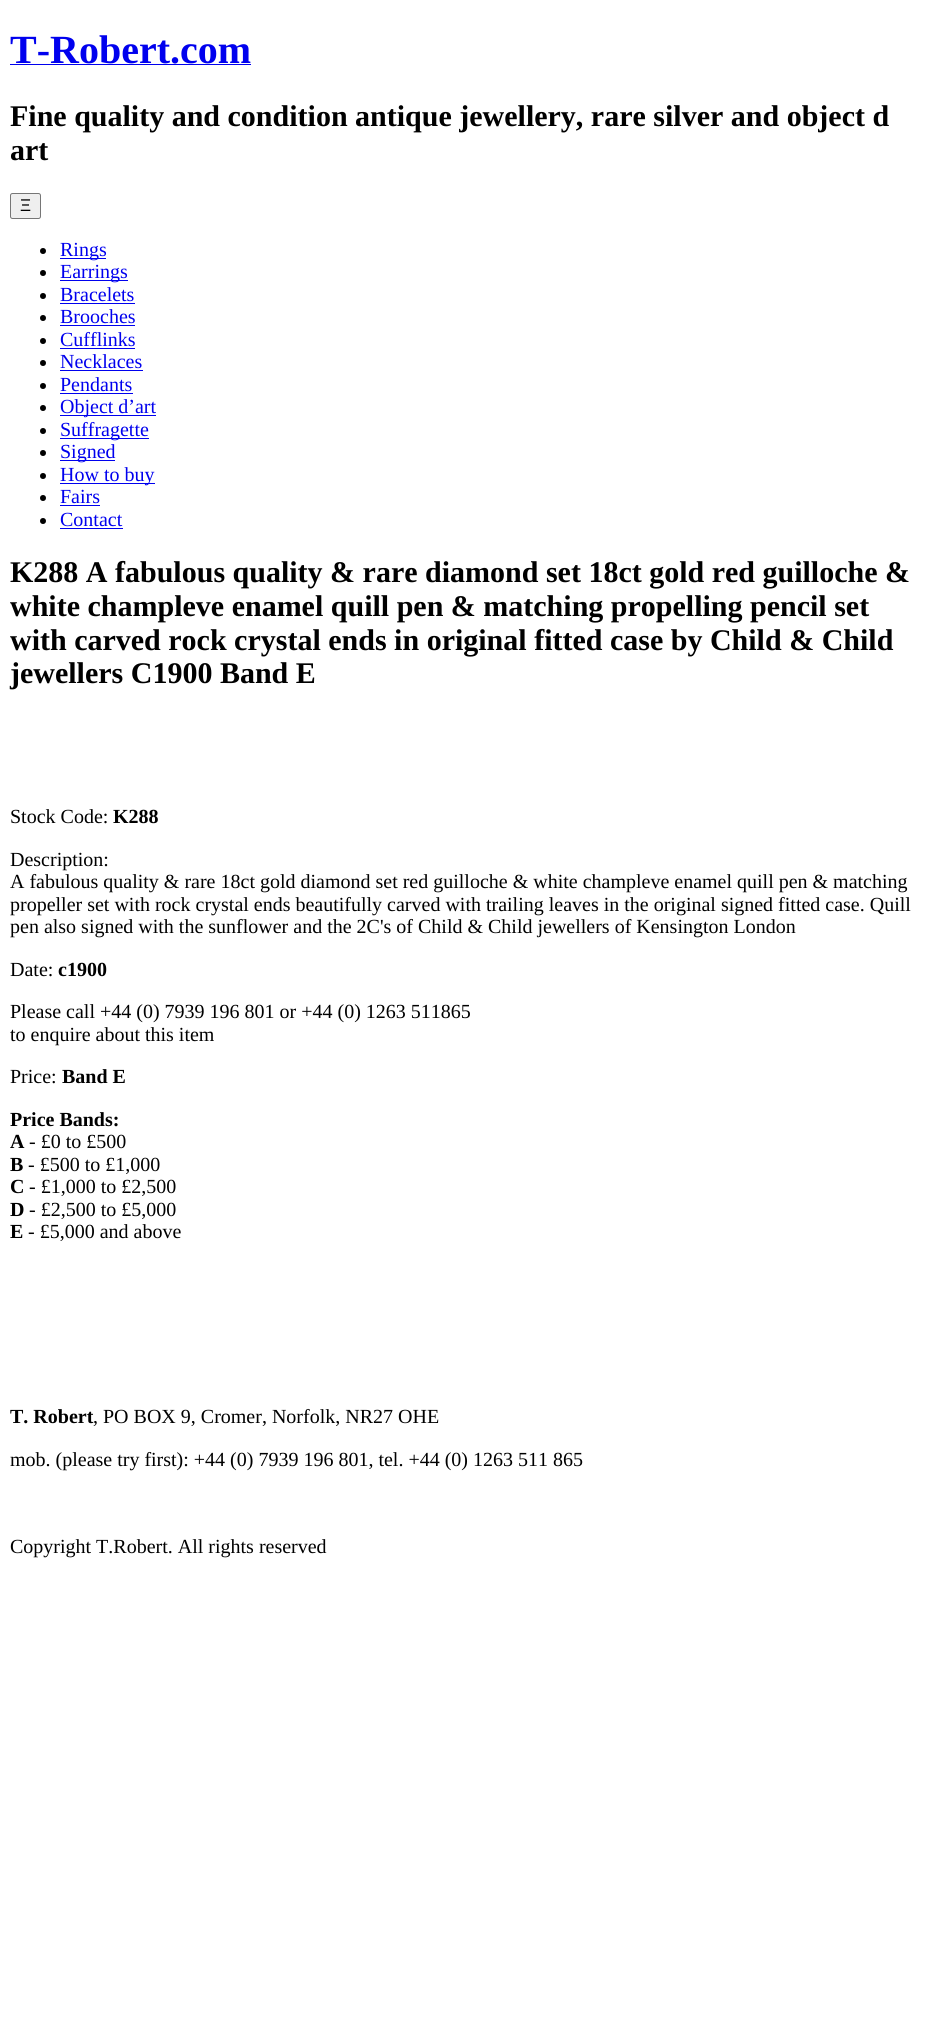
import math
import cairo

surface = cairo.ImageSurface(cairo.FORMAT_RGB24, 925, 2033)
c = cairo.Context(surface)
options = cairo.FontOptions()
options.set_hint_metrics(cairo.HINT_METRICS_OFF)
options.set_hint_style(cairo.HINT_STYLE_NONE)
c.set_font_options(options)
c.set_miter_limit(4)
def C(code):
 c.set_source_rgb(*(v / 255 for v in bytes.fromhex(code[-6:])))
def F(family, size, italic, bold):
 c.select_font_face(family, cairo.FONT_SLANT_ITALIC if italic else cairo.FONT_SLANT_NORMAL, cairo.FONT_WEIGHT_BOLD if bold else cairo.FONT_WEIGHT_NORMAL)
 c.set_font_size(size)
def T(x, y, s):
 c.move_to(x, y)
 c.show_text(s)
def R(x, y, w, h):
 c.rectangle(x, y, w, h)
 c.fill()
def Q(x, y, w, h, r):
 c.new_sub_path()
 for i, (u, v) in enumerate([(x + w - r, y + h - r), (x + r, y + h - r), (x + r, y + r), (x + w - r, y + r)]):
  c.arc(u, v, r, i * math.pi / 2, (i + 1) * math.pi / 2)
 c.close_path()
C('ffffff')
c.paint()
F('Liberation Serif',40,0,1)
C('0000ee')
T(10,63,'T-Robert.com')
R(10,64,241,1)
F('Liberation Serif',30,0,1)
C('000000')
T(10,126,'Fine quality and condition antique jewellery, rare silver and object d')
T(10,160,'art')
C('efefef')
Q(10.5,193.5,30,25,2)
c.fill_preserve()
C('767676')
c.set_line_width(1)
c.stroke()
F('Liberation Sans',17,0,0)
C('000000')
T(20,211,'Ξ')
c.new_path()
c.arc(43,251,3,0,2 * math.pi)
c.fill()
C('0000ee')
R(60,258,46,1)
F('Liberation Serif',20,0,0)
T(60,256,'Rings')
C('000000')
c.new_path()
c.arc(43,273,3,0,2 * math.pi)
c.fill()
C('0000ee')
R(60,280,68,1)
T(60,278,'Earrings')
C('000000')
c.new_path()
c.arc(43,296,3,0,2 * math.pi)
c.fill()
C('0000ee')
T(60,301,'Bracelets')
R(60,303,75,1)
C('000000')
c.new_path()
c.arc(43,318,3,0,2 * math.pi)
c.fill()
C('0000ee')
T(60,323,'Brooches')
R(60,325,75,1)
C('000000')
c.new_path()
c.arc(43,341,3,0,2 * math.pi)
c.fill()
C('0000ee')
T(60,346,'Cufflinks')
R(60,348,75,1)
C('000000')
c.new_path()
c.arc(43,363,3,0,2 * math.pi)
c.fill()
C('0000ee')
T(60,368,'Necklaces')
R(60,370,83,1)
C('000000')
c.new_path()
c.arc(43,386,3,0,2 * math.pi)
c.fill()
C('0000ee')
T(60,391,'Pendants')
R(60,393,73,1)
C('000000')
c.new_path()
c.arc(43,408,3,0,2 * math.pi)
c.fill()
C('0000ee')
R(60,415,96,1)
T(60,413,'Object d’art')
C('000000')
c.new_path()
c.arc(43,431,3,0,2 * math.pi)
c.fill()
C('0000ee')
R(60,438,89,1)
T(60,436,'Suffragette')
C('000000')
c.new_path()
c.arc(43,453,3,0,2 * math.pi)
c.fill()
C('0000ee')
R(60,460,55,1)
T(60,458,'Signed')
C('000000')
c.new_path()
c.arc(43,476,3,0,2 * math.pi)
c.fill()
C('0000ee')
R(60,483,95,1)
T(60,481,'How to buy')
C('000000')
c.new_path()
c.arc(43,498,3,0,2 * math.pi)
c.fill()
C('0000ee')
T(60,503,'Fairs')
R(60,505,40,1)
C('000000')
c.new_path()
c.arc(43,521,3,0,2 * math.pi)
c.fill()
C('0000ee')
T(60,526,'Contact')
R(60,528,63,1)
F('Liberation Serif',30,0,1)
C('000000')
T(10,582,'K288 A fabulous quality & rare diamond set 18ct gold red guilloche &')
T(10,616,'white champleve enamel quill pen & matching propelling pencil set')
T(10,650,'with carved rock crystal ends in original fitted case by Child & Child')
T(10,683,'jewellers C1900 Band E')
F('Liberation Serif',20,0,0)
T(10,823,'Stock Code:')
F('Liberation Serif',20,0,1)
T(113,823,'K288')
F('Liberation Serif',20,0,0)
T(10,866,'Description:')
T(10,888,'A fabulous quality & rare 18ct gold diamond set red guilloche & white champleve enamel quill pen & matching')
T(10,911,'propeller set with rock crystal ends beautifully carved with trailing leaves in the original signed fitted case. Quill')
T(10,933,'pen also signed with the sunflower and the 2C\'s of Child & Child jewellers of Kensington London')
T(10,976,'Date:')
F('Liberation Serif',20,0,1)
T(58,976,'c1900')
F('Liberation Serif',20,0,0)
T(10,1018,'Please call +44 (0) 7939 196 801 or +44 (0) 1263 511865')
T(10,1041,'to enquire about this item')
T(10,1083,'Price:')
F('Liberation Serif',20,0,1)
T(62,1083,'Band E')
T(10,1126,'Price Bands:')
T(10,1148,'A')
F('Liberation Serif',20,0,0)
T(29,1148,'- £0 to £500')
F('Liberation Serif',20,0,1)
T(10,1171,'B')
F('Liberation Serif',20,0,0)
T(28,1171,'- £500 to £1,000')
F('Liberation Serif',20,0,1)
T(10,1193,'C')
F('Liberation Serif',20,0,0)
T(29,1193,'- £1,000 to £2,500')
F('Liberation Serif',20,0,1)
T(10,1216,'D')
F('Liberation Serif',20,0,0)
T(29,1216,'- £2,500 to £5,000')
F('Liberation Serif',20,0,1)
T(10,1238,'E')
F('Liberation Serif',20,0,0)
T(28,1238,'- £5,000 and above')
F('Liberation Serif',20,0,1)
T(10,1423,'T. Robert')
F('Liberation Serif',20,0,0)
T(93,1423,', PO BOX 9, Cromer, Norfolk, NR27 OHE')
T(10,1466,'mob. (please try first): +44 (0) 7939 196 801, tel. +44 (0) 1263 511 865')
T(10,1553,'Copyright T.Robert. All rights reserved')
surface.write_to_png('o.png')
